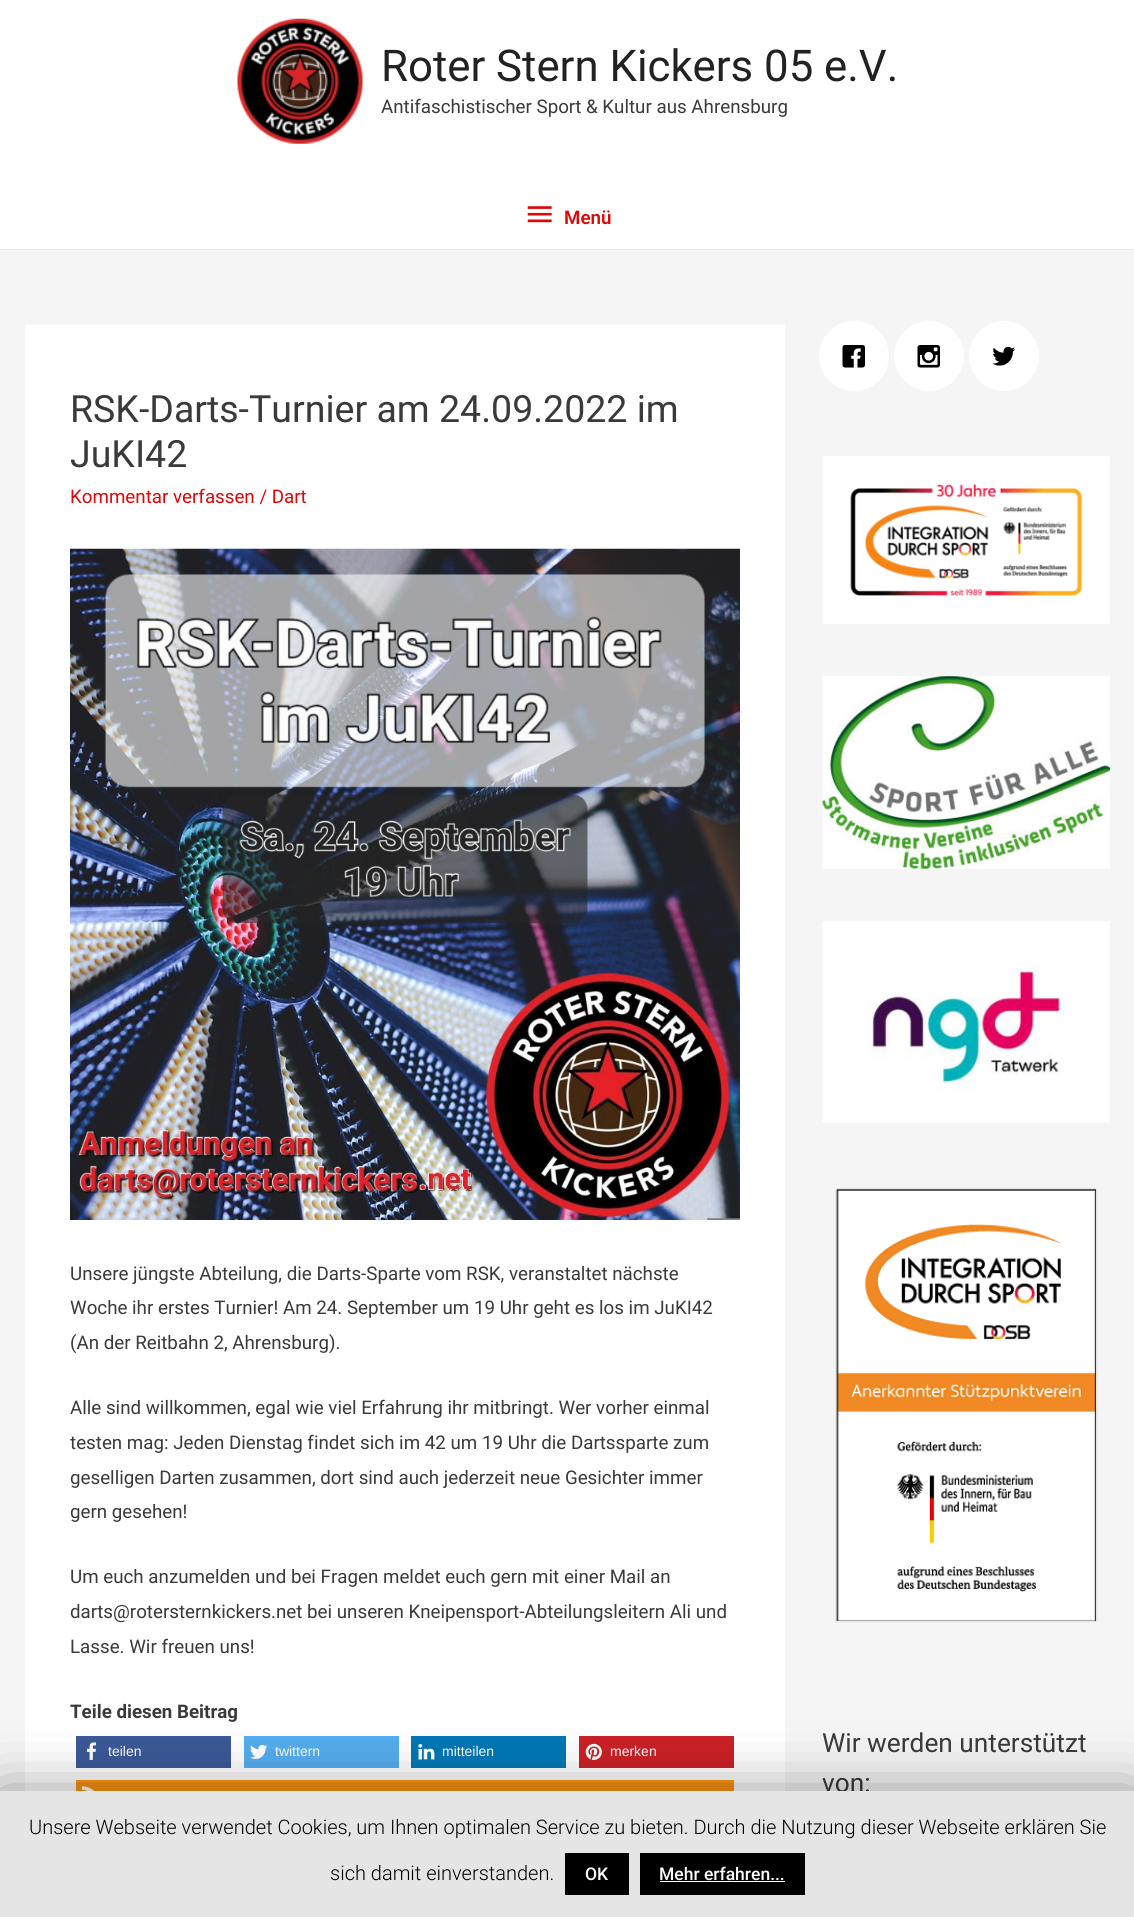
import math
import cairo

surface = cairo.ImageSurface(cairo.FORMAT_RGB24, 1134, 1917)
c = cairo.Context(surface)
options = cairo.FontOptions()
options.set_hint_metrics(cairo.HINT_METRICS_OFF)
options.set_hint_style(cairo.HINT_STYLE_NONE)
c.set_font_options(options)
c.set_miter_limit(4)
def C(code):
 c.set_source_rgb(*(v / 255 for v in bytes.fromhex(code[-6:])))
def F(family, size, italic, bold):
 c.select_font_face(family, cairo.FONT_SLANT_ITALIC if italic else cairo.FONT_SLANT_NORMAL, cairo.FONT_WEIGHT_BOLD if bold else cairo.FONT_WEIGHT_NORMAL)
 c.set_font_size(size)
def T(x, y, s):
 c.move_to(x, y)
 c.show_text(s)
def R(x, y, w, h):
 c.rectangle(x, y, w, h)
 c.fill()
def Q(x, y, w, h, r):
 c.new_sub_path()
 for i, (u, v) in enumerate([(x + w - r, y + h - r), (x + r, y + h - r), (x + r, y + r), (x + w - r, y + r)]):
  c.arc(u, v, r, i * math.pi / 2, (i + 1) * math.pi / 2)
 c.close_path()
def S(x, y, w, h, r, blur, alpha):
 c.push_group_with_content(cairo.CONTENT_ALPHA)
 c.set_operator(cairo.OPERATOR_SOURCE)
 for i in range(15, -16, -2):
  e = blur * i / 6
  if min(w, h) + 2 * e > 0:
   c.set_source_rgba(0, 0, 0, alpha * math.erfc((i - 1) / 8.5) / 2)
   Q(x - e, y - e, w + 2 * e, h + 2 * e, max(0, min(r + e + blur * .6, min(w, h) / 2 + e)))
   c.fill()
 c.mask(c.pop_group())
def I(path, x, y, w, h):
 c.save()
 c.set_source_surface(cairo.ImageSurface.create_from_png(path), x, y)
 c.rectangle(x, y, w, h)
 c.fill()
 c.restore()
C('f5f5f5')
c.paint()
C('eaeaea')
R(0,249,1134,1)
C('ffffff')
R(0,0,1134,249)
I('1.png',237,18,126,126)
F('Roboto',43.75,0,0)
C('222222')
T(381,81,'Roter Stern Kickers 05 e.V.')
F('Roboto',18.75,0,0)
C('3a3a3a')
T(381,113,'Antifaschistischer Sport & Kultur aus Ahrensburg')
I('2.png',527,206,25,17)
F('Roboto SemiBold',18.75,0,0)
C('dd0808')
T(564,224,'Menü')
C('ffffff')
R(25,325,760,1466)
F('Roboto',37.5,0,0)
C('3a3a3a')
T(70,422,'RSK-Darts-Turnier am 24.09.2022 im')
T(70,467,'JuKI42')
F('Roboto',18.75,0,0)
C('dd0808')
T(70,503,'Kommentar verfassen / Dart')
I('3.png',70,548,670,672)
C('3a3a3a')
T(70,1280,'Unsere jüngste Abteilung, die Darts-Sparte vom RSK, veranstaltet nächste')
T(70,1314,'Woche ihr erstes Turnier! Am 24. September um 19 Uhr geht es los im JuKI42')
T(70,1349,'(An der Reitbahn 2, Ahrensburg).')
T(70,1414,'Alle sind willkommen, egal wie viel Erfahrung ihr mitbringt. Wer vorher einmal')
T(70,1449,'testen mag: Jeden Dienstag findet sich im 42 um 19 Uhr die Dartssparte zum')
T(70,1484,'geselligen Darten zusammen, dort sind auch jederzeit neue Gesichter immer')
T(70,1518,'gern gesehen!')
T(70,1583,'Um euch anzumelden und bei Fragen meldet euch gern mit einer Mail an')
T(70,1618,'darts@rotersternkickers.net bei unseren Kneipensport-Abteilungsleitern Ali und')
T(70,1653,'Lasse. Wir freuen uns!')
F('Roboto',18.75,0,1)
T(70,1718,'Teile diesen Beitrag')
C('3b5998')
R(76,1736,155,32)
I('4.png',86,1742,10,18)
F('Liberation Sans',14,0,0)
C('ffffff')
T(108,1756,'teilen')
C('55acee')
R(244,1736,155,32)
I('5.png',250,1744,18,15)
C('ffffff')
T(275,1756,'twittern')
C('0077b5')
R(411,1736,155,32)
I('6.png',418,1744,17,16)
C('ffffff')
T(442,1756,'mitteilen')
C('cb2027')
R(579,1736,155,32)
I('7.png',585,1743,17,17)
C('ffffff')
T(610,1756,'merken')
C('fe9312')
R(76,1780,658,11)
I('8.png',81,1786,14,5)
C('ffffff')
Q(823,325,62,63,31)
c.fill()
I('9.png',842,345,23,23)
c.arc(854,356,33,0,2 * math.pi)
c.set_line_width(4)
c.stroke()
Q(898,325,62,63,31)
c.fill()
I('10.png',917,345,23,23)
c.arc(929,356,33,0,2 * math.pi)
c.stroke()
Q(973,325,62,63,31)
c.fill()
I('11.png',992,346,24,20)
c.arc(1004,356,33,0,2 * math.pi)
c.stroke()
I('12.png',822,456,288,168)
I('13.png',822,676,288,193)
I('14.png',822,921,288,202)
c.new_path()
c.move_to(837.5,1188.5)
c.line_to(1095.5,1188.5)
c.curve_to(1096.5,1188.5,1097.5,1189.5,1097.5,1190.5)
c.line_to(1097.5,1622.5)
c.line_to(835.5,1622.5)
c.line_to(835.5,1190.5)
c.curve_to(835.5,1189.5,836.5,1188.5,837.5,1188.5)
c.close_path()
C('eaeaea')
c.set_line_width(1)
c.stroke()
I('15.png',836,1188,261,434)
F('Roboto',26.25,0,0)
C('3a3a3a')
T(822,1752,'Wir werden unterstützt')
T(822,1792,'von:')
C('000000')
S(0,1798,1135,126,0,31,.5)
C('e5e5e5')
R(0,1791,1134,126)
F('Roboto Light',20,0,0)
C('000000')
T(29,1834,'Unsere Webseite verwendet Cookies, um Ihnen optimalen Service zu bieten. Durch die Nutzung dieser Webseite erklären Sie')
T(330,1880,'sich damit einverstanden.')
R(565,1853,64,42)
F('Roboto Medium',17.5,0,0)
C('ffffff')
T(585,1880,'OK')
C('000000')
R(640,1853,165,42)
C('ffffff')
T(659,1880,'Mehr erfahren...')
R(660,1881,125,1)
surface.write_to_png('o.png')
